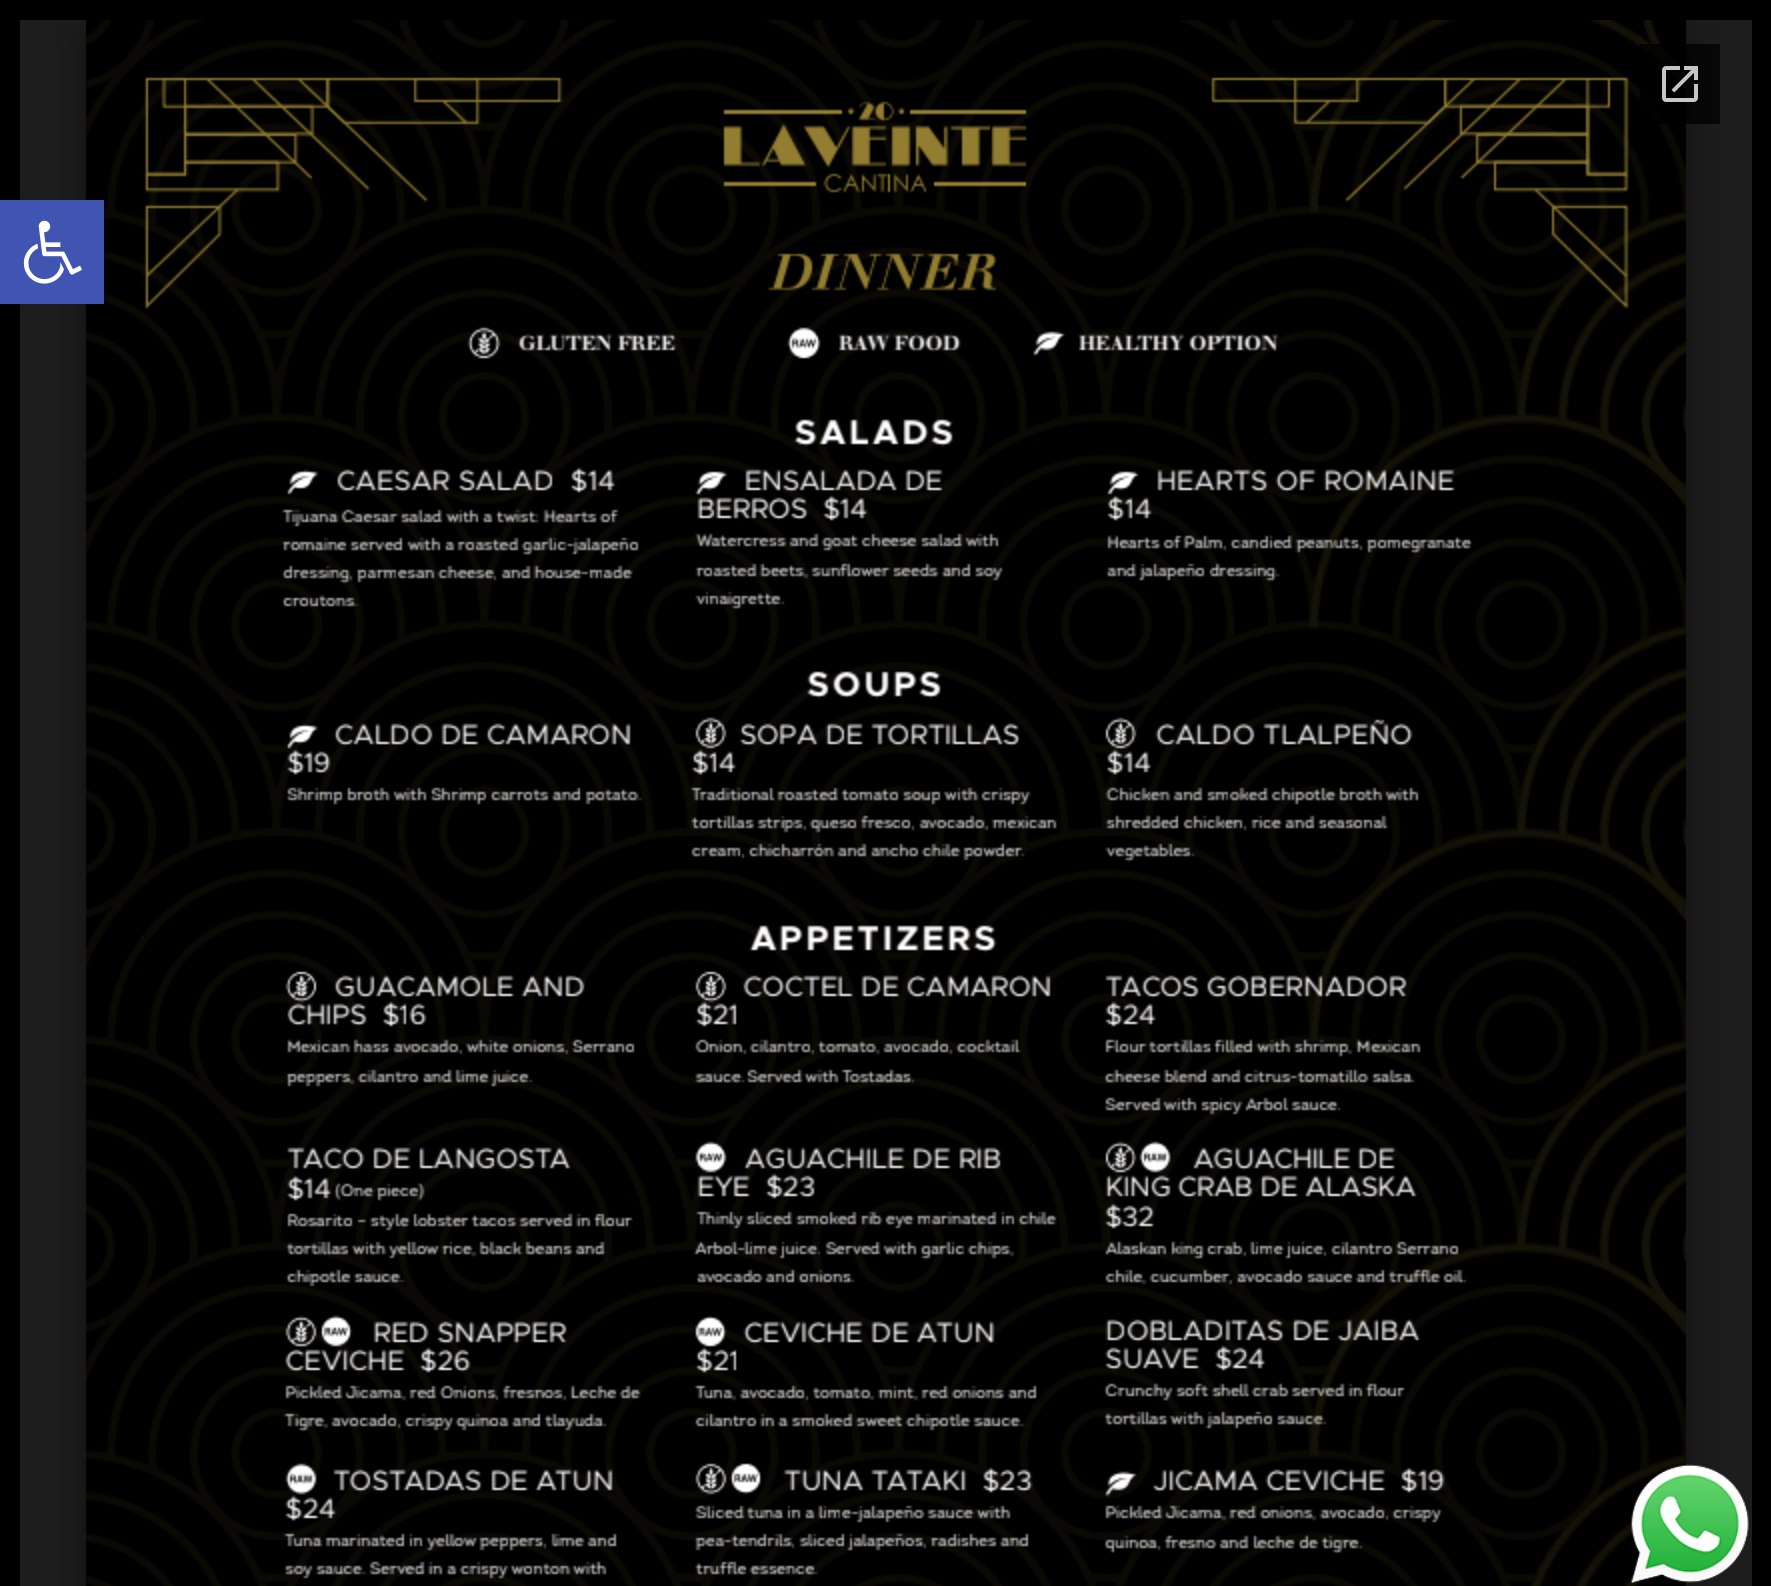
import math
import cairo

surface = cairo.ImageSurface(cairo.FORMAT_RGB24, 1771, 1586)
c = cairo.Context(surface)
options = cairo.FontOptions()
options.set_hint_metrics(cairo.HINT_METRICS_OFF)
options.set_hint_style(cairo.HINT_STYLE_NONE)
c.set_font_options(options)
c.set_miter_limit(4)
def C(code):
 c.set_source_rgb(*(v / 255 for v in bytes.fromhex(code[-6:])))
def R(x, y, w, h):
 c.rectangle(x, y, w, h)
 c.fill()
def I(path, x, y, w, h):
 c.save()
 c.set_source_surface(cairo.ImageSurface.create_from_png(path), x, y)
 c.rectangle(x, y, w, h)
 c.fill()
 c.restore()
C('000000')
c.paint()
I('1.png',20,20,1732,1566)
C('4054b2')
R(0,200,104,104)
I('2.png',23,220,59,64)
I('3.png',1630,1464,119,120)
surface.write_to_png('o.png')
